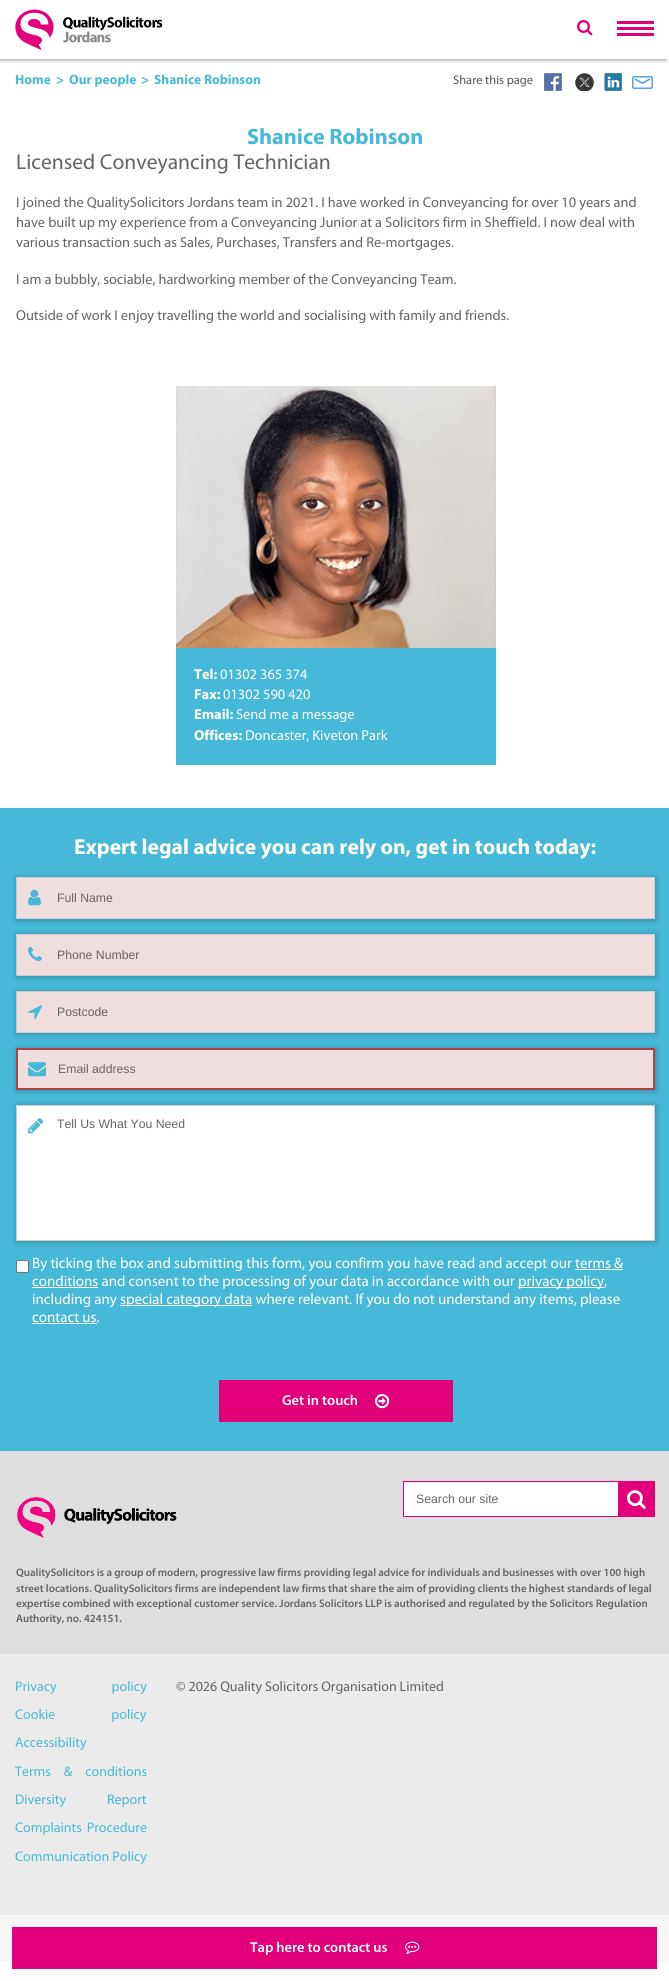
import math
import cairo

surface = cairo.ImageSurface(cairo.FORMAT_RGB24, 669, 1981)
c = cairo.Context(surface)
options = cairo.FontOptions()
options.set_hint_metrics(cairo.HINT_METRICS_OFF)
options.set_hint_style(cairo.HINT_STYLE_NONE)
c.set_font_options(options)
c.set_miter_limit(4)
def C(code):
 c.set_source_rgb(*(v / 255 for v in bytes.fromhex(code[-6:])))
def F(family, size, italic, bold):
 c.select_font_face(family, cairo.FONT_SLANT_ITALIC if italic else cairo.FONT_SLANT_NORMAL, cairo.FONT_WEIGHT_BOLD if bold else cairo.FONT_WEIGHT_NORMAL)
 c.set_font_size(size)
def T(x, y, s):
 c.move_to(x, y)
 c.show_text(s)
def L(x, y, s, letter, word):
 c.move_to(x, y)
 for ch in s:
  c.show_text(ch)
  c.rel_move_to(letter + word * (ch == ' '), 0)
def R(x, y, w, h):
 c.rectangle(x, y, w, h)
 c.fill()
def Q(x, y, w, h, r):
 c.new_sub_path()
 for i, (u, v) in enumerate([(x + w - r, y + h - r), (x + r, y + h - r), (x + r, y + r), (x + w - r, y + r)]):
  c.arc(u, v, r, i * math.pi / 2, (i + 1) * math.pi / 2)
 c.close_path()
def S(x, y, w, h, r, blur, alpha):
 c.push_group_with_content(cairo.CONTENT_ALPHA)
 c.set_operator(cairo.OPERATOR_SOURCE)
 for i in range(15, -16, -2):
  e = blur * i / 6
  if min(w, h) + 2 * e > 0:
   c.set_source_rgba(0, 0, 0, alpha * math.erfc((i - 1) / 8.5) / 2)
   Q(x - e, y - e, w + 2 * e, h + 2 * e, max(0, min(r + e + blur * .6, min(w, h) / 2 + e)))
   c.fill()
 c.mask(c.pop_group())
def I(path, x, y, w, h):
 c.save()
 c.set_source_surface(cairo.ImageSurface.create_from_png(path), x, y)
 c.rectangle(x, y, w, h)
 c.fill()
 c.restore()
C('ffffff')
c.paint()
c.save()
c.rectangle(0,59,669,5)
c.clip()
C('999798')
S(-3,1,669,59,0,2,1)
c.restore()
I('1.png',15,9,148,41)
I('2.png',577,20,16,16)
C('e2007a')
R(617,27,37,3)
R(617,21,37,3)
R(617,33,37,3)
F('Myriad',13.5,0,1)
C('47b9d8')
T(15,84,'Home')
T(56,84,'>')
T(69,84,'Our people')
T(141,84,'>')
T(154,84,'Shanice Robinson')
F('Myriad',12.5,0,0)
C('555555')
T(453,84,'Share this page')
I('3.png',544,73,18,18)
I('4.png',575,73,19,18)
I('5.png',604,73,18,18)
I('6.png',632,76,21,13)
F('Myriad',22.25,0,1)
C('47b9d8')
T(247,144,'Shanice Robinson')
F('Myriad',21.6,0,0)
C('666465')
T(16,169,'Licensed Conveyancing Technician')
F('Myriad',14.4,0,0)
T(16,207,'I joined the QualitySolicitors Jordans team in 2021. I have worked in Conveyancing for over 10 years and')
T(16,227,'have built up my experience from a Conveyancing Junior at a Solicitors firm in Sheffield. I now deal with')
T(16,247,'various transaction such as Sales, Purchases, Transfers and Re-mortgages.')
T(16,284,'I am a bubbly, sociable, hardworking member of the Conveyancing Team.')
T(16,320,'Outside of work I enjoy travelling the world and socialising with family and friends.')
C('47b9d8')
R(176,386,320,379)
I('7.png',176,386,320,262)
F('Myriad',14.4,0,1)
C('ffffff')
T(194,679,'Tel:')
F('Myriad',14.4,0,0)
T(220,679,'01302 365 374')
F('Myriad',14.4,0,1)
T(194,699,'Fax:')
F('Myriad',14.4,0,0)
T(223,699,'01302 590 420')
F('Myriad',14.4,0,1)
T(194,719,'Email:')
F('Myriad',14.4,0,0)
T(236,719,'Send me a message')
F('Myriad',14.4,0,1)
T(194,740,'Offices:')
F('Myriad',14.4,0,0)
T(245,740,'Doncaster, Kiveton Park')
C('47b9d8')
R(0,808,669,643)
F('Myriad',21.6,0,1)
C('ffffff')
T(74,854,'Expert legal advice you can rely on, get in touch today:')
C('000000')
S(16,877,641,44,0,3,.2)
C('f0dddd')
c.rectangle(16.5,877.5,638,41)
c.fill_preserve()
C('cccccc')
c.set_line_width(1)
c.stroke()
I('8.png',28,889,13,17)
F('Liberation Sans',12.25,0,0)
C('666465')
T(57,902,'Full Name')
C('000000')
S(16,934,641,44,0,3,.2)
C('f0dddd')
c.rectangle(16.5,934.5,638,41)
c.fill_preserve()
C('cccccc')
c.stroke()
I('9.png',28,946,15,15)
C('666465')
T(57,959,'Phone Number')
C('000000')
S(16,991,641,44,0,3,.2)
C('f0dddd')
c.rectangle(16.5,991.5,638,41)
c.fill_preserve()
C('cccccc')
c.stroke()
I('10.png',28,1005,15,15)
C('666465')
T(57,1016,'Postcode')
C('000000')
S(16,1048,641,44,0,3,.2)
C('f0dddd')
c.rectangle(17,1049,637,40)
c.fill_preserve()
C('a94442')
c.set_line_width(2)
c.stroke()
I('11.png',28,1062,18,15)
C('666465')
T(58,1073,'Email address')
C('000000')
S(16,1105,641,138,0,3,.2)
C('ffffff')
c.rectangle(16.5,1105.5,638,135)
c.fill_preserve()
C('cccccc')
c.set_line_width(1)
c.stroke()
I('12.png',28,1118,16,16)
C('666465')
T(57,1128,'Tell Us What You Need')
C('ffffff')
Q(16.5,1260.5,12,12,1.5)
c.fill_preserve()
C('767676')
c.stroke()
F('Myriad',15,0,0)
C('ffffff')
T(32,1268,'By ticking the box and submitting this form, you confirm you have read and accept our terms &')
R(32,1287,66,1)
T(32,1286,'conditions and consent to the processing of your data in accordance with our')
R(575,1269,48,1)
R(518,1287,86,1)
T(518,1286,'privacy policy,')
T(32,1304,'including any')
R(120,1305,132,1)
T(120,1304,'special category data where relevant. If you do not understand any items, please')
T(32,1322,'contact us.')
R(32,1323,65,1)
C('e2007a')
R(219,1380,234,42)
F('Myriad SemiBold',14.4,0,0)
C('ffffff')
T(282,1405,'Get in touch')
I('13.png',375,1394,15,15)
C('dedede')
R(0,1451,669,203)
I('14.png',17,1497,160,41)
C('ffffff')
R(404,1483,214,33)
C('ececec')
R(404,1482,214,1)
c.rectangle(403.5,1481.5,215,35)
C('e2007a')
c.stroke()
F('Liberation Sans',12.25,0,0)
C('666465')
T(416,1503,'Search our site')
C('e2007a')
R(619,1481,36,36)
I('15.png',627,1490,19,19)
F('Myriad SemiBold',11,0,0)
C('666465')
T(16,1576,'QualitySolicitors is a group of modern, progressive law firms providing legal advice for individuals and businesses with over 100 high')
T(16,1592,'street locations. QualitySolicitors firms are independent law firms that share the aim of providing clients the highest standards of legal')
T(16,1607,'expertise combined with exceptional customer service. Jordans Solicitors LLP is authorised and regulated by the Solicitors Regulation')
T(16,1622,'Authority, no. 424151.')
C('ebebeb')
R(0,1654,669,261)
C('f7f7f7')
R(0,1915,669,46)
F('Myriad',14,0,0)
C('47b9d8')
L(15,1691,'Privacy policy',0,52)
L(15,1719,'Cookie policy',0,53)
T(15,1747,'Accessibility')
L(15,1776,'Terms & conditions',0,10)
L(15,1804,'Diversity Report',0,38)
L(15,1832,'Complaints Procedure',0,2)
T(15,1861,'Communication Policy')
C('666465')
T(176,1691,'© 2026 Quality Solicitors Organisation Limited')
C('e2007a')
R(12,1927,645,42)
F('Myriad SemiBold',14.4,0,0)
C('ffffff')
T(250,1952,'Tap here to contact us')
I('16.png',405,1941,15,13)
surface.write_to_png('o.png')
